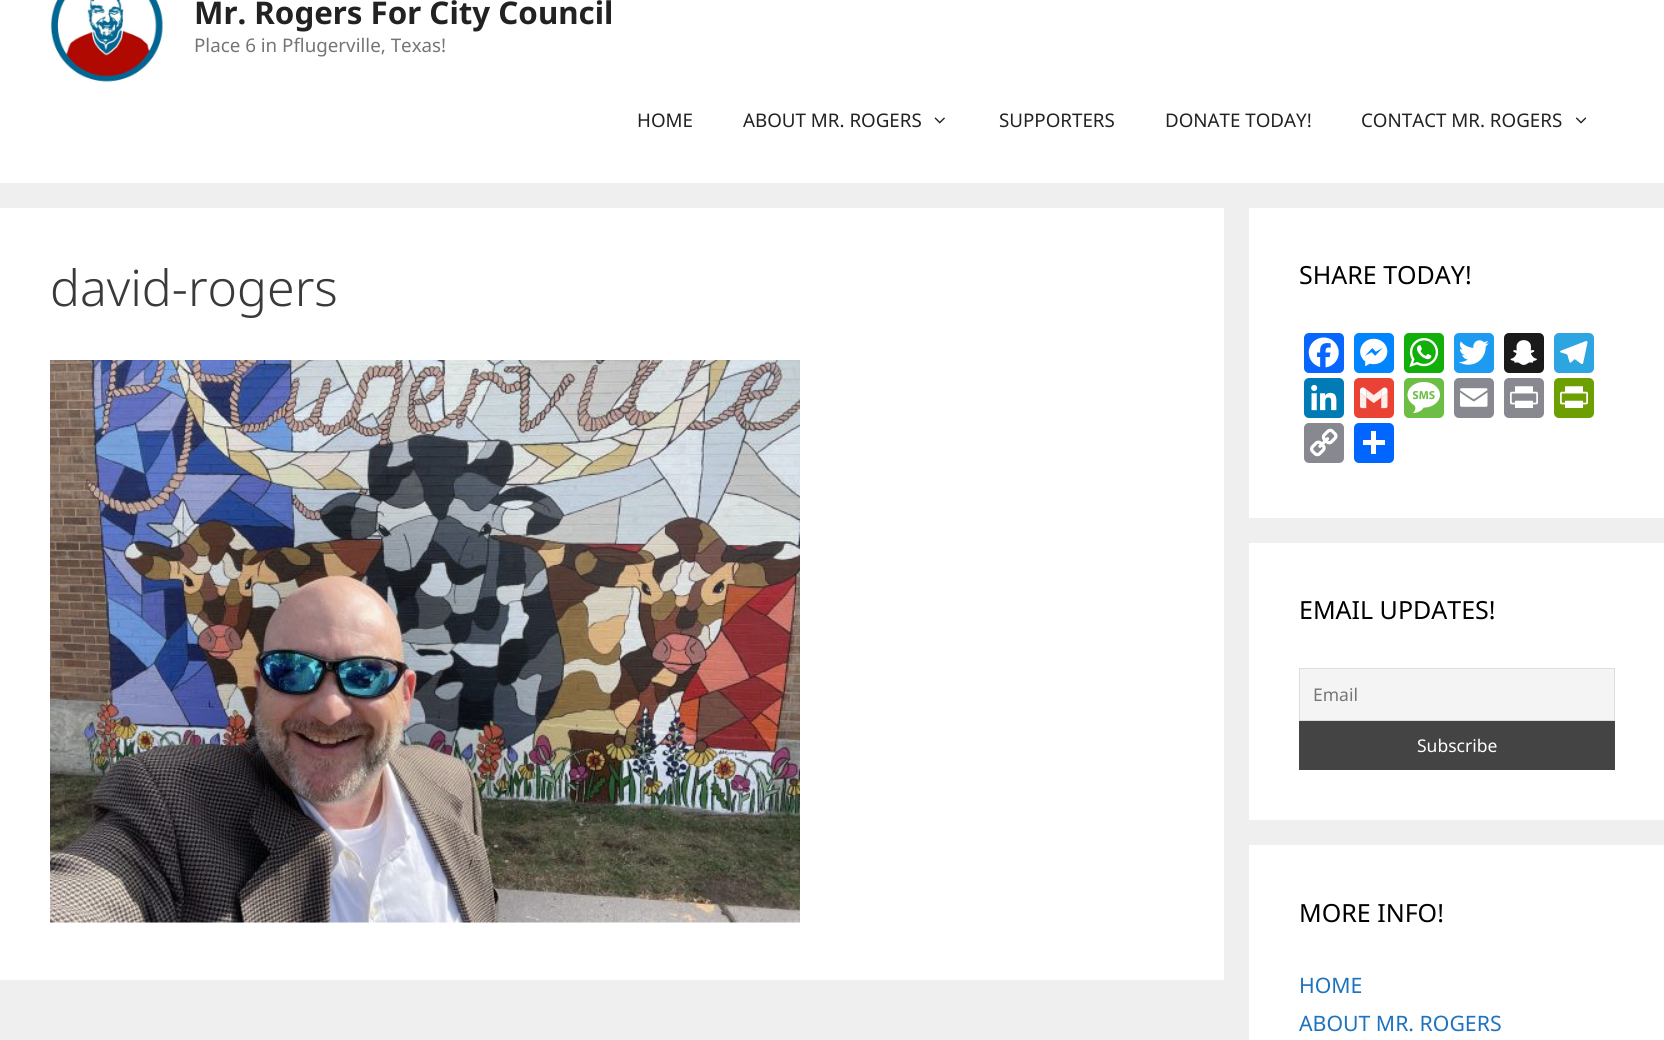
import math
import cairo

surface = cairo.ImageSurface(cairo.FORMAT_RGB24, 1664, 1040)
c = cairo.Context(surface)
options = cairo.FontOptions()
options.set_hint_metrics(cairo.HINT_METRICS_OFF)
options.set_hint_style(cairo.HINT_STYLE_NONE)
c.set_font_options(options)
c.set_miter_limit(4)
def C(code):
 c.set_source_rgb(*(v / 255 for v in bytes.fromhex(code[-6:])))
def F(family, size, italic, bold):
 c.select_font_face(family, cairo.FONT_SLANT_ITALIC if italic else cairo.FONT_SLANT_NORMAL, cairo.FONT_WEIGHT_BOLD if bold else cairo.FONT_WEIGHT_NORMAL)
 c.set_font_size(size)
def T(x, y, s):
 c.move_to(x, y)
 c.show_text(s)
def R(x, y, w, h):
 c.rectangle(x, y, w, h)
 c.fill()
def Q(x, y, w, h, r):
 c.new_sub_path()
 for i, (u, v) in enumerate([(x + w - r, y + h - r), (x + r, y + h - r), (x + r, y + r), (x + w - r, y + r)]):
  c.arc(u, v, r, i * math.pi / 2, (i + 1) * math.pi / 2)
 c.close_path()
def I(path, x, y, w, h):
 c.save()
 c.set_source_surface(cairo.ImageSurface.create_from_png(path), x, y)
 c.rectangle(x, y, w, h)
 c.fill()
 c.restore()
C('efefef')
c.paint()
C('ffffff')
R(0,0,1664,183)
I('1.png',50,0,113,83)
F('Noto Sans',31.25,0,1)
C('222222')
T(194,24,'Mr. Rogers For City Council')
F('Noto Sans',18.75,0,0)
C('757575')
T(194,52,'Place 6 in Pflugerville, Texas!')
C('222222')
T(637,127,'HOME')
T(743,127,'ABOUT MR. ROGERS')
I('2.png',934,117,11,7)
T(999,127,'SUPPORTERS')
T(1165,127,'DONATE TODAY!')
T(1361,127,'CONTACT MR. ROGERS')
I('3.png',1575,117,12,7)
C('ffffff')
R(0,208,1224,772)
F('Noto Sans Light',50,0,0)
C('3a3a3a')
T(50,306,'david-rogers')
I('4.png',50,360,750,563)
C('ffffff')
R(1249,208,415,310)
F('Noto Sans',25,0,0)
C('000000')
T(1299,284,'SHARE TODAY!')
C('0866ff')
Q(1304,333,40,40,5)
c.fill()
I('5.png',1308,337,31,31)
C('0084ff')
Q(1354,333,40,40,5)
c.fill()
I('6.png',1360,338,28,29)
C('12af0a')
Q(1404,333,40,40,5)
c.fill()
I('7.png',1409,338,30,29)
C('1d9bf0')
Q(1454,333,40,40,5)
c.fill()
I('8.png',1459,340,30,25)
C('1a1a1a')
Q(1504,333,40,40,5)
c.fill()
I('9.png',1510,340,27,25)
C('2ca5e0')
Q(1554,333,40,40,5)
c.fill()
I('10.png',1560,341,28,23)
C('007bb5')
Q(1304,378,40,40,5)
c.fill()
I('11.png',1311,384,26,27)
C('ea4335')
Q(1354,378,40,40,5)
c.fill()
I('12.png',1360,387,28,22)
C('6cbe45')
Q(1404,378,40,40,5)
c.fill()
I('13.png',1407,381,33,33)
C('888990')
Q(1454,378,40,40,5)
c.fill()
I('14.png',1460,388,28,19)
Q(1504,378,40,40,5)
c.fill()
I('15.png',1510,386,28,22)
C('6d9f00')
Q(1554,378,40,40,5)
c.fill()
I('16.png',1560,386,28,22)
C('888990')
Q(1304,423,40,40,5)
c.fill()
I('17.png',1310,428,28,29)
C('0166ff')
Q(1354,423,40,40,5)
c.fill()
C('ffffff')
R(1371,431,5,23)
R(1363,440,22,5)
R(1249,543,415,277)
C('000000')
T(1299,619,'EMAIL UPDATES!')
C('f4f4f4')
c.rectangle(1299.5,668.5,315,52)
c.fill_preserve()
C('dddddd')
c.set_line_width(1)
c.stroke()
F('Noto Sans',17.5,0,0)
C('757575')
T(1313,701,'Email')
C('444444')
R(1299,721,316,49)
C('ffffff')
T(1417,752,'Subscribe')
R(1249,845,415,195)
F('Noto Sans',25,0,0)
C('000000')
T(1299,922,'MORE INFO!')
F('Noto Sans',21.25,0,0)
C('1e73be')
T(1299,993,'HOME')
T(1299,1031,'ABOUT MR. ROGERS')
surface.write_to_png('o.png')
